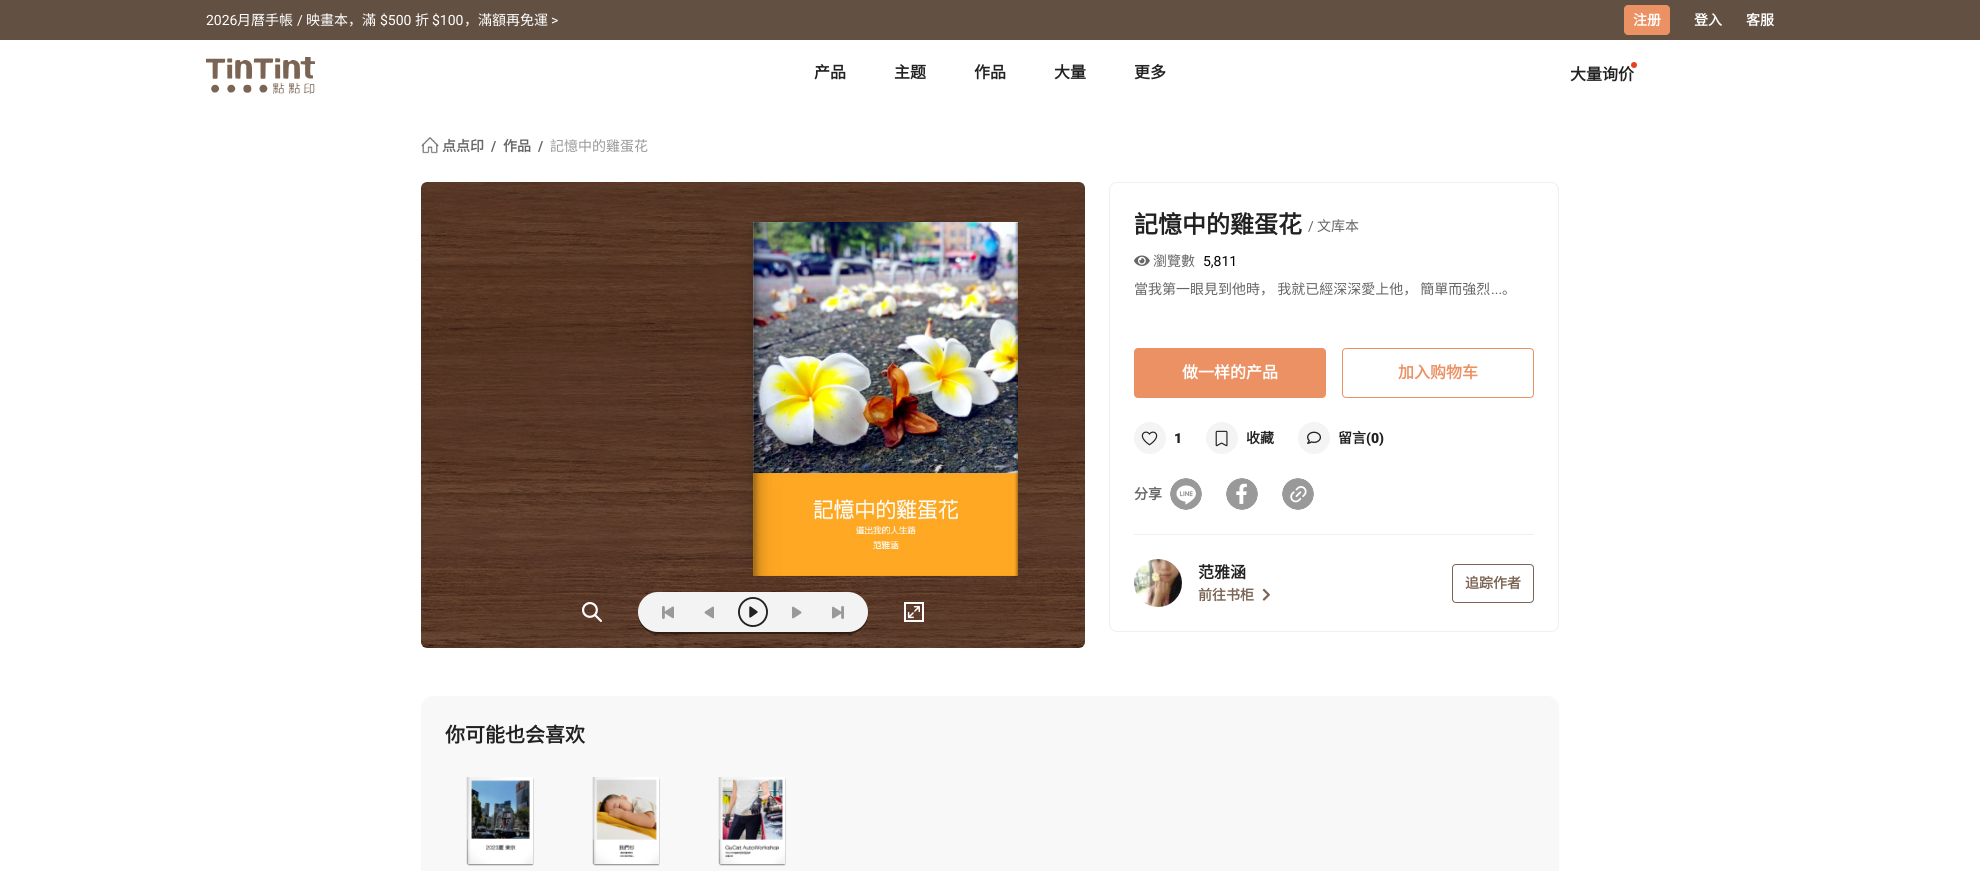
import math
import cairo

surface = cairo.ImageSurface(cairo.FORMAT_RGB24, 1980, 871)
c = cairo.Context(surface)
options = cairo.FontOptions()
options.set_hint_metrics(cairo.HINT_METRICS_OFF)
options.set_hint_style(cairo.HINT_STYLE_NONE)
c.set_font_options(options)
c.set_miter_limit(4)
def C(code):
 c.set_source_rgb(*(v / 255 for v in bytes.fromhex(code[-6:])))
def F(family, size, italic, bold):
 c.select_font_face(family, cairo.FONT_SLANT_ITALIC if italic else cairo.FONT_SLANT_NORMAL, cairo.FONT_WEIGHT_BOLD if bold else cairo.FONT_WEIGHT_NORMAL)
 c.set_font_size(size)
def T(x, y, s):
 c.move_to(x, y)
 c.show_text(s)
def R(x, y, w, h):
 c.rectangle(x, y, w, h)
 c.fill()
def Q(x, y, w, h, r):
 c.new_sub_path()
 for i, (u, v) in enumerate([(x + w - r, y + h - r), (x + r, y + h - r), (x + r, y + r), (x + w - r, y + r)]):
  c.arc(u, v, r, i * math.pi / 2, (i + 1) * math.pi / 2)
 c.close_path()
def S(x, y, w, h, r, blur, alpha):
 c.push_group_with_content(cairo.CONTENT_ALPHA)
 c.set_operator(cairo.OPERATOR_SOURCE)
 for i in range(15, -16, -2):
  e = blur * i / 6
  if min(w, h) + 2 * e > 0:
   c.set_source_rgba(0, 0, 0, alpha * math.erfc((i - 1) / 8.5) / 2)
   Q(x - e, y - e, w + 2 * e, h + 2 * e, max(0, min(r + e + blur * .6, min(w, h) / 2 + e)))
   c.fill()
 c.mask(c.pop_group())
def I(path, x, y, w, h):
 c.save()
 c.set_source_surface(cairo.ImageSurface.create_from_png(path), x, y)
 c.rectangle(x, y, w, h)
 c.fill()
 c.restore()
C('ffffff')
c.paint()
C('625043')
R(0,0,1980,40)
F('Roboto',14,0,0)
C('ffffff')
T(206,25,'2026')
F('Noto Sans CJK SC',14,0,0)
T(237,25,'月曆手帳')
F('Roboto',14,0,0)
T(297,25,'/')
F('Noto Sans CJK SC',14,0,0)
T(306,25,'映畫本，滿')
F('Roboto',14,0,0)
T(380,25,'$500')
F('Noto Sans CJK SC',14,0,0)
T(415,25,'折')
F('Roboto',14,0,0)
T(432,25,'$100')
F('Noto Sans CJK SC',14,0,0)
T(464,25,'，滿額再免運')
F('Roboto',14,0,0)
T(551,25,'>')
C('eb9164')
Q(1624.5,5.5,45,29,3.5)
c.fill_preserve()
c.set_line_width(1)
c.stroke()
F('Noto Sans CJK SC',14,0,1)
C('ffffff')
T(1633,25,'注册')
T(1694,25,'登入')
T(1746,25,'客服')
I('1.png',206,57,109,37)
F('Noto Sans CJK SC',16,0,1)
C('212121')
T(814,78,'产品')
T(894,78,'主题')
T(974,78,'作品')
T(1054,78,'大量')
T(1134,78,'更多')
T(1570,80,'大量询价')
C('eb3e24')
c.new_path()
c.arc(1634,65,3,0,2 * math.pi)
c.fill()
I('2.png',421,137,18,17)
F('Noto Sans CJK SC',14,0,1)
C('666666')
T(442,151,'点点印')
F('Roboto',14,0,1)
T(491,151,'/')
F('Noto Sans CJK SC',14,0,1)
T(503,151,'作品')
F('Roboto',14,0,1)
T(538,151,'/')
F('Noto Sans CJK SC',14,0,0)
C('999999')
T(550,151,'記憶中的雞蛋花')
I('3.png',421,182,664,466)
c.save()
c.rectangle(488,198,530,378)
c.clip()
C('000000')
S(753,230,266,354,0,8,.15)
c.restore()
I('4.png',753,222,265,354)
c.set_source_rgba(0,0,0,0.5)
c.new_path()
c.move_to(638,613)
c.line_to(638,614)
c.curve_to(638,625,647,634,658,634)
c.line_to(848,634)
c.curve_to(859,634,868,625,868,614)
c.line_to(868,613)
c.curve_to(867,624,859,632,848,632)
c.line_to(658,632)
c.curve_to(647,632,639,624,638,613)
c.close_path()
c.fill()
C('f3f3f3')
Q(638,592,230,40,20)
c.fill()
I('5.png',582,602,20,20)
I('6.png',662,606,12,13)
I('7.png',704,606,10,13)
I('8.png',738,597,30,30)
I('9.png',792,606,10,13)
I('10.png',832,606,12,13)
I('11.png',904,602,20,20)
Q(1109.5,182.5,449,449,7.5)
C('efefef')
c.stroke()
F('Noto Sans CJK SC',24,0,1)
C('212121')
T(1134,233,'記憶中的雞蛋花')
F('Roboto',14,0,0)
C('666666')
T(1308,231,'/')
F('Noto Sans CJK SC',14,0,0)
T(1317,231,'文库本')
I('12.png',1134,255,16,11)
T(1153,266,'瀏覽數')
F('Roboto',14,0,0)
C('000000')
T(1203,266,'5,811')
F('Noto Sans CJK SC',14,0,0)
C('666666')
T(1134,294,'當我第一眼見到他時， 我就已經深深愛上他， 簡單而強烈')
F('Roboto',14,0,0)
T(1491,294,'...')
F('Noto Sans CJK SC',14,0,0)
T(1502,294,'。')
C('eb9164')
Q(1134.5,348.5,191,49,3.5)
c.fill_preserve()
c.stroke()
F('Noto Sans CJK SC',16,0,1)
C('ffffff')
T(1182,378,'做一样的产品')
Q(1342.5,348.5,191,49,3.5)
C('eb9164')
c.stroke()
T(1398,378,'加入购物车')
C('f4f4f4')
c.new_path()
c.arc(1150,438,16,0,2 * math.pi)
c.fill()
I('13.png',1141,431,17,15)
F('Roboto Black',14,0,0)
C('212121')
T(1174,443,'1')
C('f4f4f4')
c.new_path()
c.arc(1222,438,16,0,2 * math.pi)
c.fill()
I('14.png',1215,430,13,17)
F('Noto Sans CJK SC',14,0,1)
C('212121')
T(1246,443,'收藏')
C('f4f4f4')
c.new_path()
c.arc(1314,438,16,0,2 * math.pi)
c.fill()
I('15.png',1307,431,14,13)
C('212121')
T(1338,443,'留言')
F('Roboto Black',14,0,0)
T(1366,443,'(0)')
F('Noto Sans CJK SC',14,0,1)
C('666666')
T(1134,499,'分享')
I('16.png',1170,478,32,32)
I('17.png',1226,478,32,32)
I('18.png',1282,478,32,32)
C('efefef')
R(1134,534,400,1)
I('19.png',1134,559,48,48)
F('Noto Sans CJK SC',16,0,1)
C('212121')
T(1198,578,'范雅涵')
F('Noto Sans CJK SC',14,0,1)
C('7b6453')
T(1198,600,'前往书柜')
I('20.png',1262,588,8,13)
Q(1452.5,564.5,81,38,3.5)
c.stroke()
T(1465,588,'追踪作者')
C('f8f8f8')
Q(421,696,1138,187,12)
c.fill()
F('Noto Sans CJK SC',20,0,1)
C('212121')
T(445,742,'你可能也会喜欢')
I('21.png',466,777,68,89)
I('22.png',468,777,65,87)
I('23.png',468,777,65,87)
I('21.png',592,777,68,89)
I('24.png',594,777,65,87)
I('25.png',594,777,65,87)
I('21.png',718,777,68,89)
I('26.png',720,777,65,87)
I('27.png',720,777,65,87)
surface.write_to_png('o.png')
